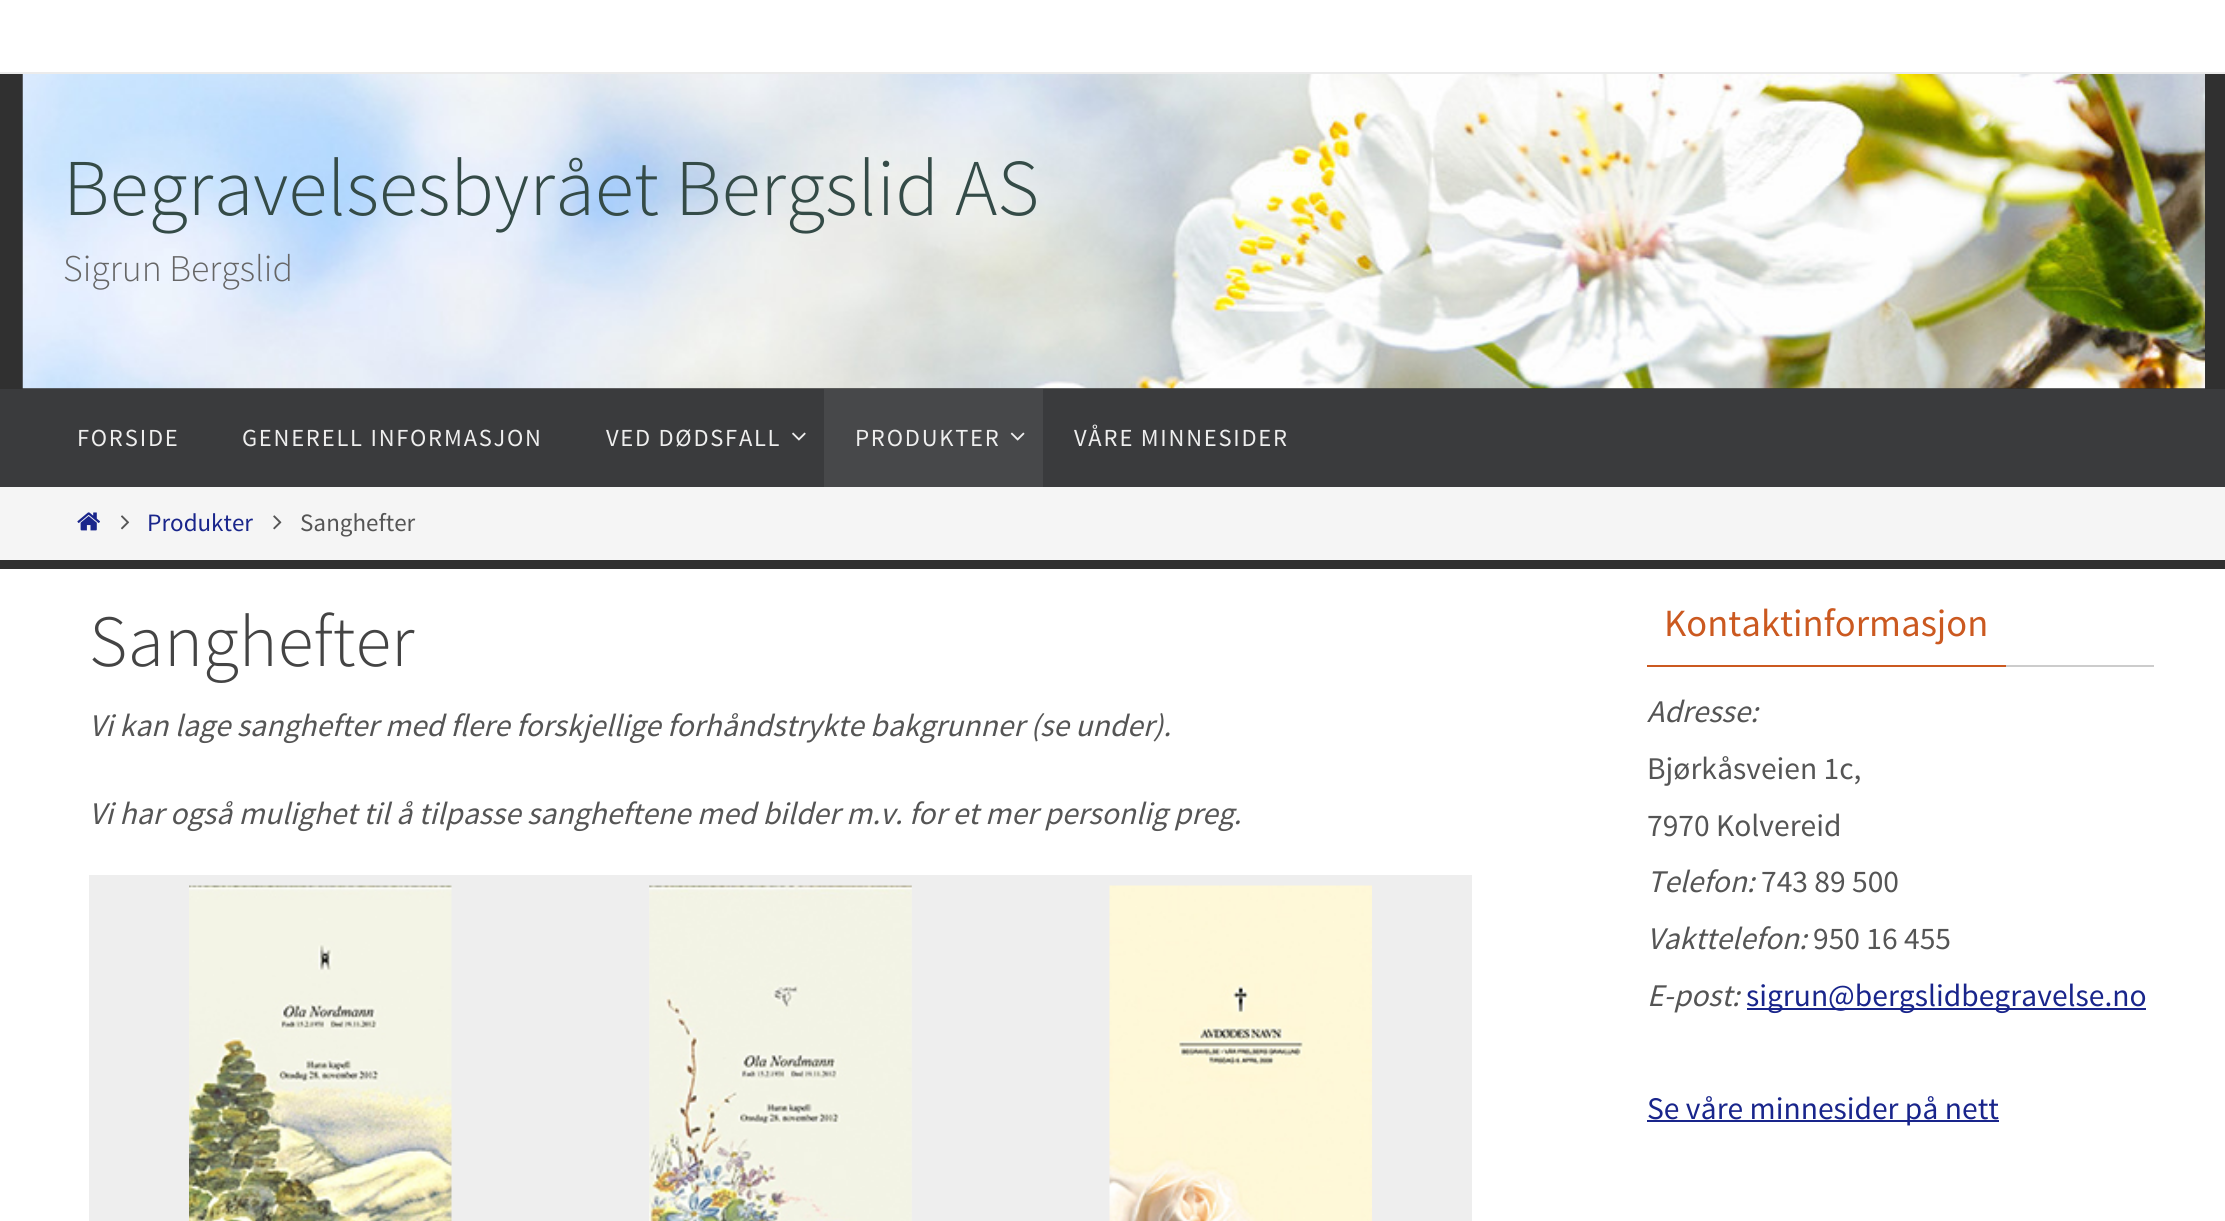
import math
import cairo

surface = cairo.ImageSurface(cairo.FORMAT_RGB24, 2225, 1221)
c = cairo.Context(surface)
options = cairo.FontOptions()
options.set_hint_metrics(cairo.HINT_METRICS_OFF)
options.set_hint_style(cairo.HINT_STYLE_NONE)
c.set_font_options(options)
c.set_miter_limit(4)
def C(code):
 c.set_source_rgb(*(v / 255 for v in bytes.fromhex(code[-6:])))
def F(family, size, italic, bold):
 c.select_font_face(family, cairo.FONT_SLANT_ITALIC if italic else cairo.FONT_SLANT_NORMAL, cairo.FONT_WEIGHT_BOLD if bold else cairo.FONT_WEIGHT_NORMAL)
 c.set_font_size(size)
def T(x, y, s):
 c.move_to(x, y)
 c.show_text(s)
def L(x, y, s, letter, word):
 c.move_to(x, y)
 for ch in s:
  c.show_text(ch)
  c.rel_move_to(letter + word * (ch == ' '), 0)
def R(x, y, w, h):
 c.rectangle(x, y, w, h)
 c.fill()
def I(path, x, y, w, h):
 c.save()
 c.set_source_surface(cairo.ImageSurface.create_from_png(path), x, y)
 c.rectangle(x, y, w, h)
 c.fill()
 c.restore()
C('303030')
c.paint()
C('ffffff')
R(0,0,2225,72)
C('ebebeb')
R(0,72,2225,2)
I('1.png',22,74,2183,315)
F('Source Sans Pro Light',80.5,0,0)
C('344b47')
T(63,215,'Begravelsesbyrået Bergslid AS')
F('Source Sans Pro Light',37.75,0,0)
C('666666')
T(63,281,'Sigrun Bergslid')
C('3a3b3d')
R(0,389,2225,98)
F('Source Sans Pro',24.5,0,0)
C('eeeeee')
L(77,446,'FORSIDE',1.75,0)
L(242,446,'GENERELL INFORMASJON',1.75,0)
L(606,446,'VED DØDSFALL',1.75,0)
I('2.png',792,432,14,9)
C('47484a')
R(824,389,219,98)
C('eeeeee')
L(855,446,'PRODUKTER',1.75,0)
I('3.png',1010,432,15,9)
L(1074,446,'VÅRE MINNESIDER',1.75,0)
C('f5f5f5')
R(0,487,2225,73)
I('4.png',77,512,23,19)
I('5.png',121,515,9,15)
F('Source Sans Pro',25,0,0)
C('19258b')
T(147,531,'Produkter')
I('6.png',273,515,9,15)
C('555555')
T(300,531,'Sanghefter')
C('ffffff')
R(0,569,2225,652)
F('Source Sans Pro Light',73.5,0,0)
C('444444')
T(89,666,'Sanghefter')
F('Source Sans Pro',31.5,1,0)
C('555555')
T(89,736,'Vi kan lage sanghefter med flere forskjellige forhåndstrykte bakgrunner (se under).')
T(89,824,'Vi har også mulighet til å tilpasse sangheftene med bilder m.v. for et mer personlig preg.')
C('eeeeee')
R(89,875,1383,346)
I('7.png',189,885,263,336)
I('8.png',649,885,263,336)
I('9.png',1109,885,263,336)
C('cccccc')
R(2006,665,148,2)
C('cb5920')
R(1647,665,359,2)
F('Source Sans Pro',38.5,0,0)
T(1664,636,'Kontaktinformasjon')
F('Source Sans Pro',31.5,1,0)
C('555555')
T(1647,722,'Adresse:')
F('Source Sans Pro',31.5,0,0)
T(1647,779,'Bjørkåsveien 1c,')
T(1647,836,'7970 Kolvereid')
F('Source Sans Pro',31.5,1,0)
T(1647,892,'Telefon:')
F('Source Sans Pro',31.5,0,0)
T(1761,892,'743 89 500')
F('Source Sans Pro',31.5,1,0)
T(1647,949,'Vakttelefon:')
F('Source Sans Pro',31.5,0,0)
T(1813,949,'950 16 455')
F('Source Sans Pro',31.5,1,0)
T(1647,1006,'E-post:')
C('19258b')
R(1747,1008,399,2)
F('Source Sans Pro',31.5,0,0)
T(1746,1006,'sigrun@bergslidbegravelse.no')
R(1647,1120,352,2)
T(1647,1119,'Se våre minnesider på nett')
surface.write_to_png('o.png')
